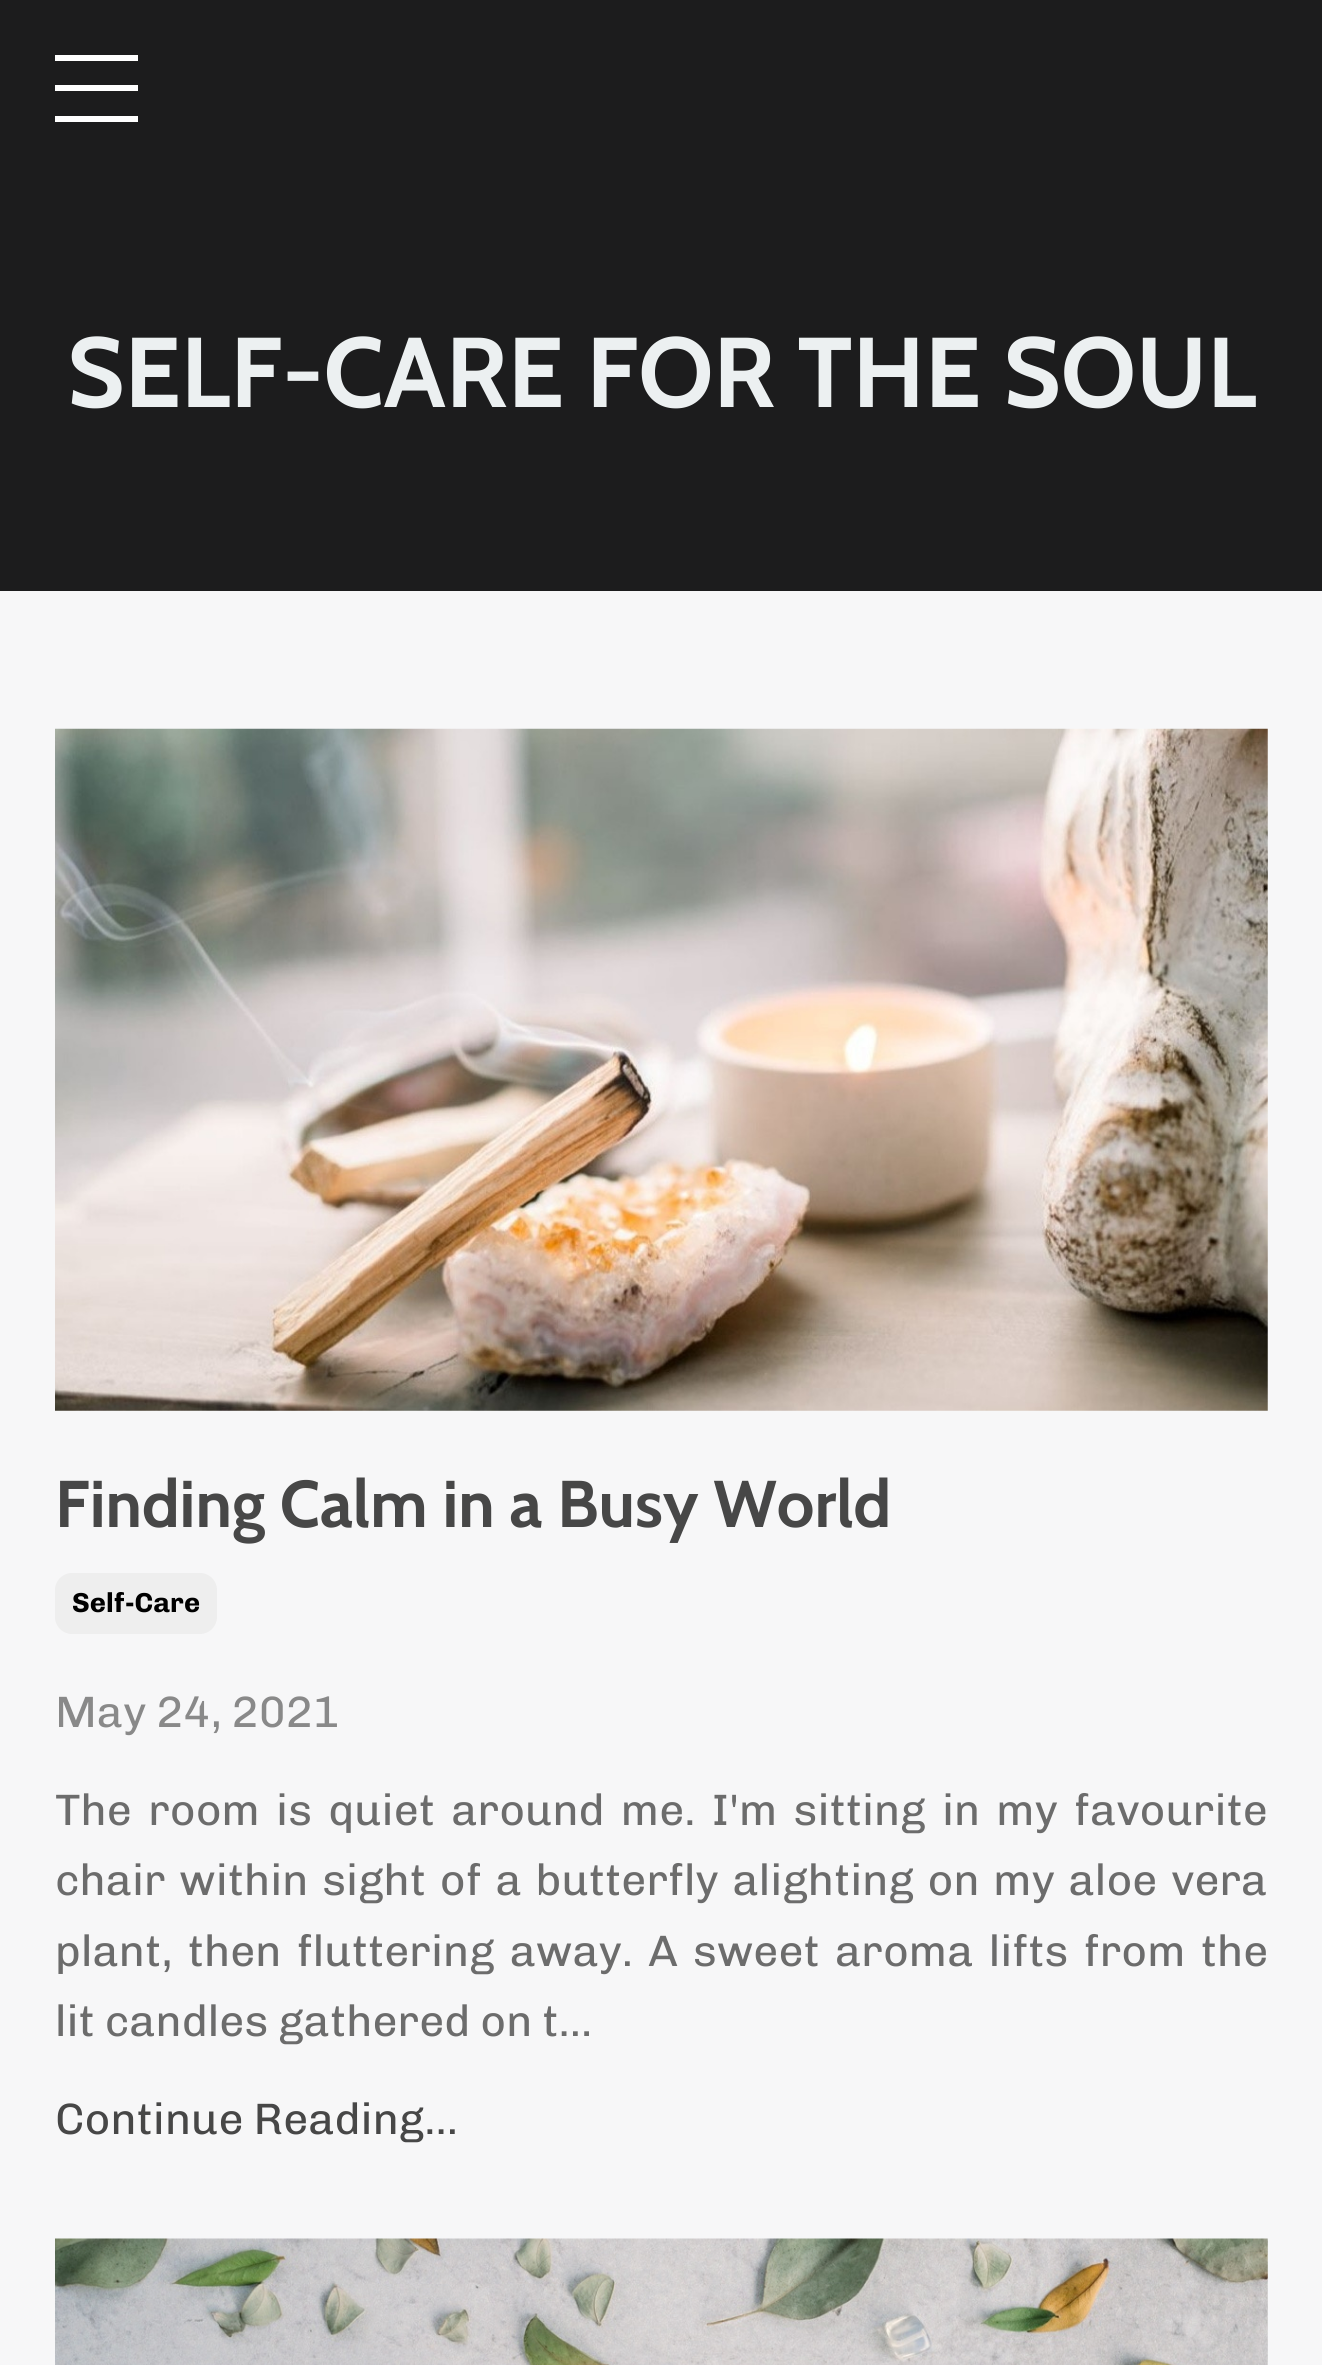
import math
import cairo

surface = cairo.ImageSurface(cairo.FORMAT_RGB24, 1322, 2365)
c = cairo.Context(surface)
options = cairo.FontOptions()
options.set_hint_metrics(cairo.HINT_METRICS_OFF)
options.set_hint_style(cairo.HINT_STYLE_NONE)
c.set_font_options(options)
c.set_miter_limit(4)
def C(code):
 c.set_source_rgb(*(v / 255 for v in bytes.fromhex(code[-6:])))
def F(family, size, italic, bold):
 c.select_font_face(family, cairo.FONT_SLANT_ITALIC if italic else cairo.FONT_SLANT_NORMAL, cairo.FONT_WEIGHT_BOLD if bold else cairo.FONT_WEIGHT_NORMAL)
 c.set_font_size(size)
def T(x, y, s):
 c.move_to(x, y)
 c.show_text(s)
def L(x, y, s, letter, word):
 c.move_to(x, y)
 for ch in s:
  c.show_text(ch)
  c.rel_move_to(letter + word * (ch == ' '), 0)
def R(x, y, w, h):
 c.rectangle(x, y, w, h)
 c.fill()
def Q(x, y, w, h, r):
 c.new_sub_path()
 for i, (u, v) in enumerate([(x + w - r, y + h - r), (x + r, y + h - r), (x + r, y + r), (x + w - r, y + r)]):
  c.arc(u, v, r, i * math.pi / 2, (i + 1) * math.pi / 2)
 c.close_path()
def I(path, x, y, w, h):
 c.save()
 c.set_source_surface(cairo.ImageSurface.create_from_png(path), x, y)
 c.rectangle(x, y, w, h)
 c.fill()
 c.restore()
C('f7f7f8')
c.paint()
C('1c1c1d')
R(0,0,1322,591)
C('ffffff')
R(55,55,83,6)
R(55,85,83,6)
R(55,116,83,6)
F('Cabin',99,0,1)
C('ecf0f1')
T(67,407,'SELF-CARE FOR THE SOUL')
I('1.png',55,728,1213,683)
F('Cabin',66,0,1)
C('474747')
T(55,1527,'Finding Calm in a Busy World')
C('eeeeee')
Q(55,1573,162,61,17)
c.fill()
F('Chivo',27.5,0,1)
C('000000')
T(72,1612,'Self-Care')
F('Chivo',44,0,0)
C('898989')
T(55,1727,'May 24, 2021')
C('6c6c6c')
L(55,1825,'The room is quiet around me. I\'m sitting in my favourite',0,6.25)
L(55,1895,'chair within sight of a butterfly alighting on my aloe vera',0,3.75)
L(55,1966,'plant, then fluttering away. A sweet aroma lifts from the',0,5.25)
T(55,2036,'lit candles gathered on t...')
C('474747')
T(55,2134,'Continue Reading...')
I('2.png',55,2238,1213,127)
surface.write_to_png('o.png')
